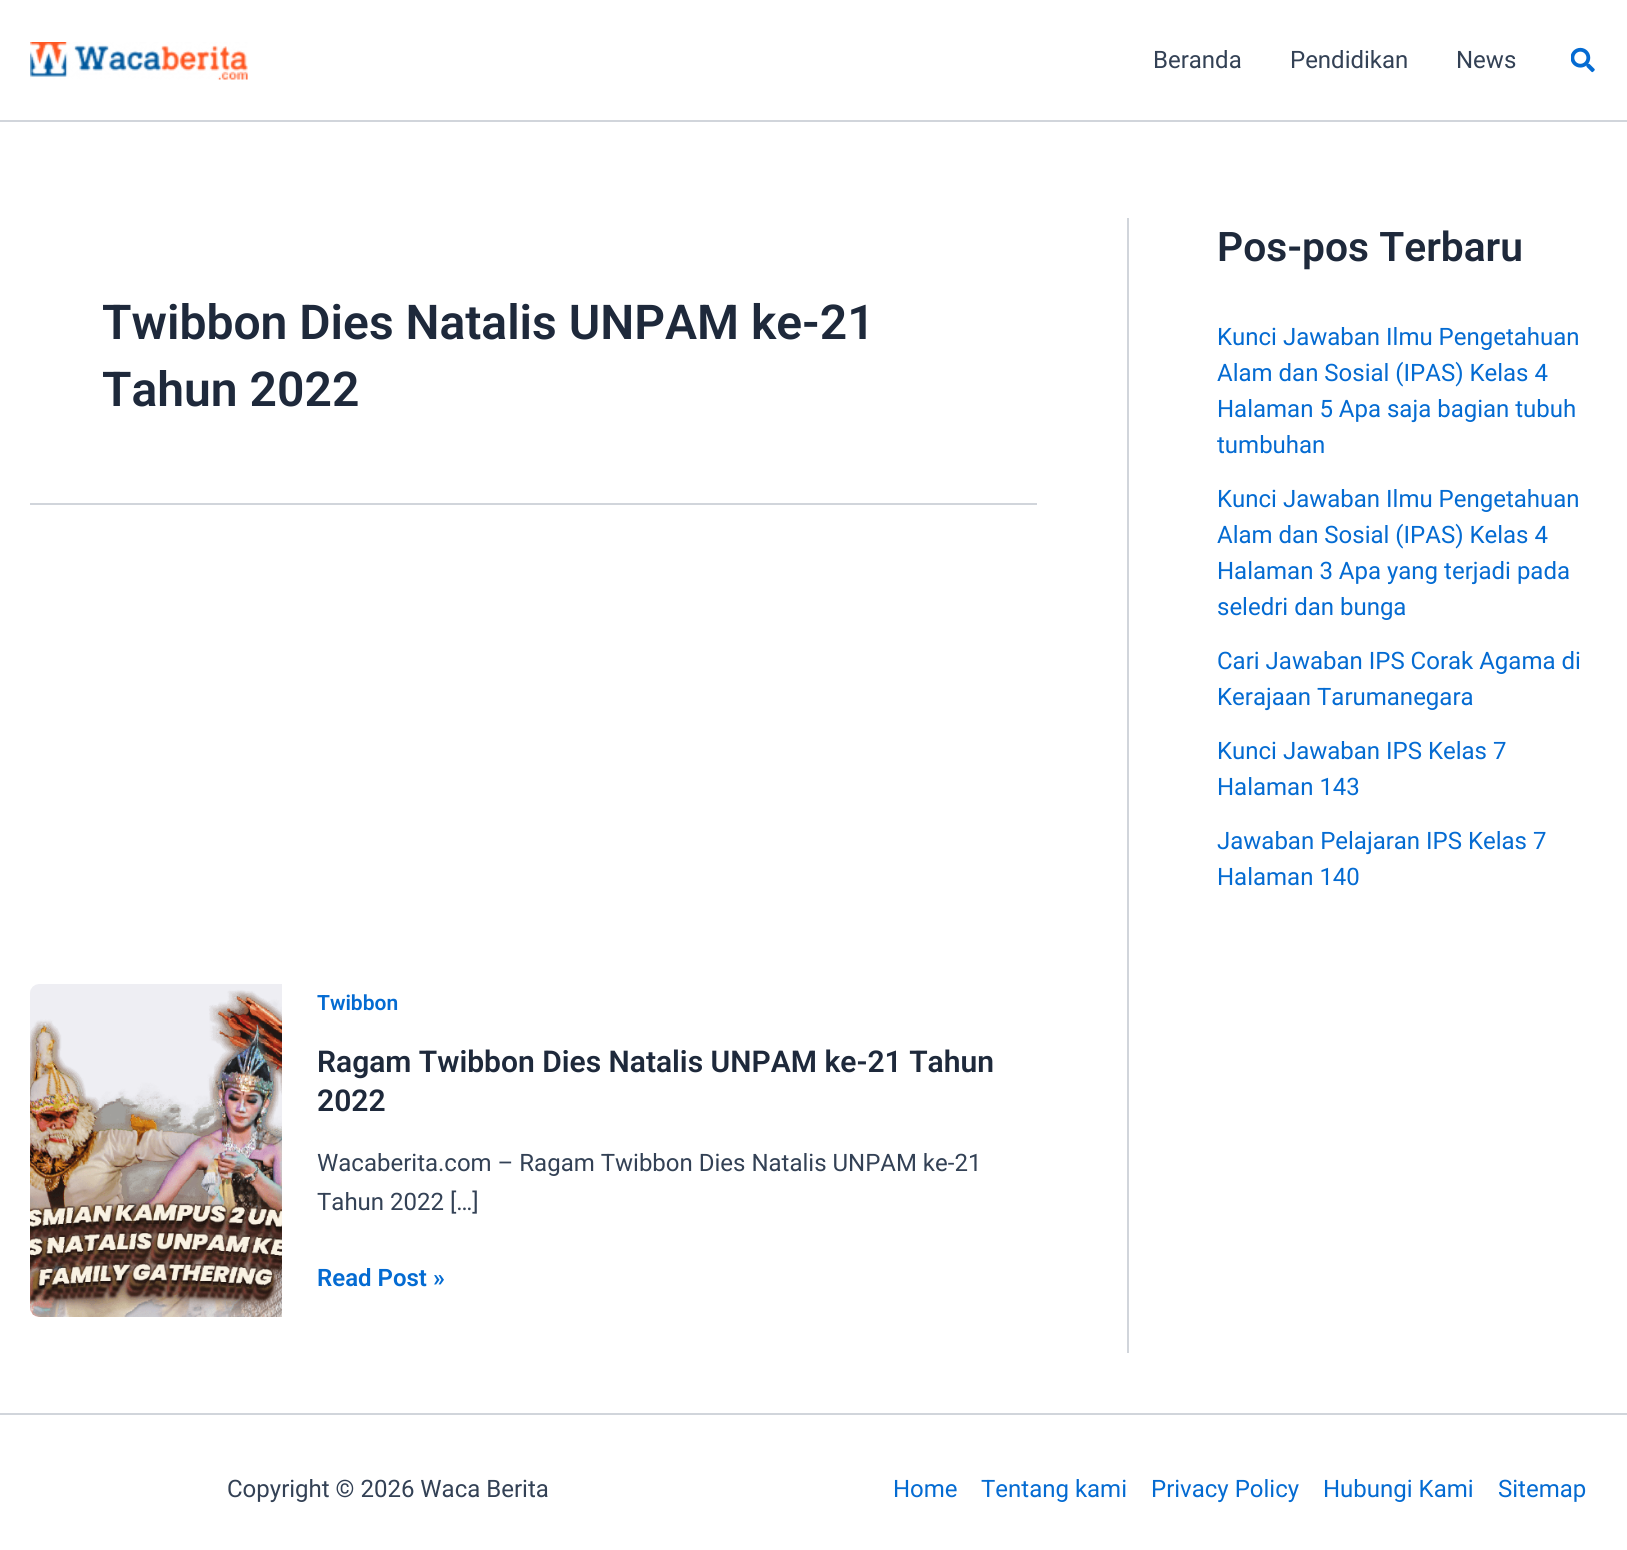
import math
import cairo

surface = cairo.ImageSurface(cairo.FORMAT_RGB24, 1627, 1550)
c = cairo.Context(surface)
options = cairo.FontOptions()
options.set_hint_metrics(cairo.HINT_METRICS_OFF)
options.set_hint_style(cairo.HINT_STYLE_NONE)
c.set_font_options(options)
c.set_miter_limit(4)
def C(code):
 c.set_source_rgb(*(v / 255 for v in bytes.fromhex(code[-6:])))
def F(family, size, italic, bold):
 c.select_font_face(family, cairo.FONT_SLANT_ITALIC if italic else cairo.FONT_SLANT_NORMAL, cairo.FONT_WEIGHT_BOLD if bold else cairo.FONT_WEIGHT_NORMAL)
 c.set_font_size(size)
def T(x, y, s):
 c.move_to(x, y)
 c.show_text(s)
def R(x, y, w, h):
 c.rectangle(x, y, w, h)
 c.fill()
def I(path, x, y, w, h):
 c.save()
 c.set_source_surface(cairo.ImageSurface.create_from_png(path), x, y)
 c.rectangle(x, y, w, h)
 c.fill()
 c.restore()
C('ffffff')
c.paint()
C('d1d5db')
R(0,120,1627,2)
I('1.png',30,42,218,38)
F('Roboto',24,0,0)
C('334155')
T(1153,68,'Beranda')
T(1290,68,'Pendidikan')
T(1456,68,'News')
I('2.png',1571,47,24,26)
C('d1d5db')
R(30,503,1007,2)
F('Roboto SemiBold',48,0,0)
C('1e293b')
T(102,339,'Twibbon Dies Natalis UNPAM ke-21')
T(102,406,'Tahun 2022')
I('3.png',30,984,252,333)
F('Roboto SemiBold',21,0,0)
C('046bd2')
T(317,1010,'Twibbon')
F('Roboto SemiBold',30,0,0)
C('1e293b')
T(317,1072,'Ragam Twibbon Dies Natalis UNPAM ke-21 Tahun')
T(317,1111,'2022')
F('Roboto',24,0,0)
C('334155')
T(317,1171,'Wacaberita.com – Ragam Twibbon Dies Natalis UNPAM ke-21')
T(317,1210,'Tahun 2022 […]')
F('Roboto SemiBold',24,0,0)
C('046bd2')
T(317,1286,'Read Post »')
C('d1d5db')
R(1127,218,2,1135)
F('Roboto SemiBold',40.75,0,0)
C('1e293b')
T(1217,261,'Pos-pos Terbaru')
F('Roboto',24,0,0)
C('046bd2')
T(1217,345,'Kunci Jawaban Ilmu Pengetahuan')
T(1217,381,'Alam dan Sosial (IPAS) Kelas 4')
T(1217,417,'Halaman 5 Apa saja bagian tubuh')
T(1217,453,'tumbuhan')
T(1217,507,'Kunci Jawaban Ilmu Pengetahuan')
T(1217,543,'Alam dan Sosial (IPAS) Kelas 4')
T(1217,579,'Halaman 3 Apa yang terjadi pada')
T(1217,615,'seledri dan bunga')
T(1217,669,'Cari Jawaban IPS Corak Agama di')
T(1217,705,'Kerajaan Tarumanegara')
T(1217,759,'Kunci Jawaban IPS Kelas 7')
T(1217,795,'Halaman 143')
T(1217,849,'Jawaban Pelajaran IPS Kelas 7')
T(1217,885,'Halaman 140')
C('d1d5db')
R(0,1413,1627,2)
C('334155')
T(227,1497,'Copyright © 2026 Waca Berita')
C('046bd2')
T(893,1497,'Home')
T(981,1497,'Tentang kami')
T(1151,1497,'Privacy Policy')
T(1323,1497,'Hubungi Kami')
T(1498,1497,'Sitemap')
surface.write_to_png('o.png')
